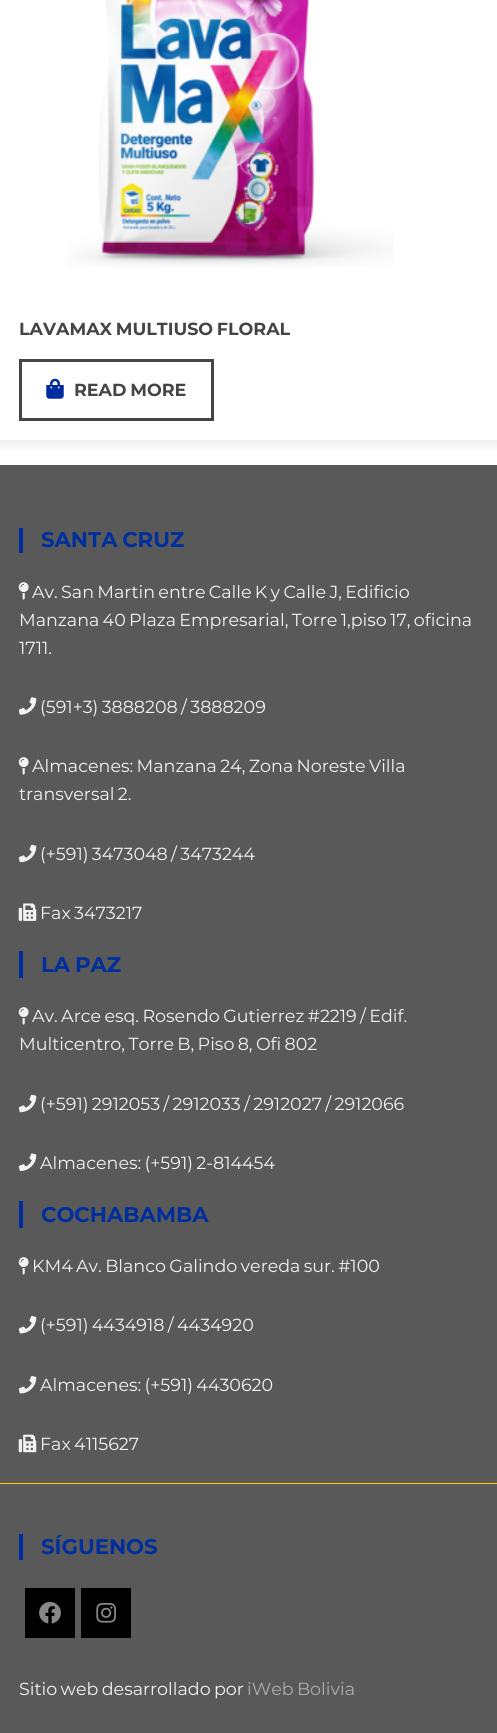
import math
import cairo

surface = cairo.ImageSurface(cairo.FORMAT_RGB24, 497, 1733)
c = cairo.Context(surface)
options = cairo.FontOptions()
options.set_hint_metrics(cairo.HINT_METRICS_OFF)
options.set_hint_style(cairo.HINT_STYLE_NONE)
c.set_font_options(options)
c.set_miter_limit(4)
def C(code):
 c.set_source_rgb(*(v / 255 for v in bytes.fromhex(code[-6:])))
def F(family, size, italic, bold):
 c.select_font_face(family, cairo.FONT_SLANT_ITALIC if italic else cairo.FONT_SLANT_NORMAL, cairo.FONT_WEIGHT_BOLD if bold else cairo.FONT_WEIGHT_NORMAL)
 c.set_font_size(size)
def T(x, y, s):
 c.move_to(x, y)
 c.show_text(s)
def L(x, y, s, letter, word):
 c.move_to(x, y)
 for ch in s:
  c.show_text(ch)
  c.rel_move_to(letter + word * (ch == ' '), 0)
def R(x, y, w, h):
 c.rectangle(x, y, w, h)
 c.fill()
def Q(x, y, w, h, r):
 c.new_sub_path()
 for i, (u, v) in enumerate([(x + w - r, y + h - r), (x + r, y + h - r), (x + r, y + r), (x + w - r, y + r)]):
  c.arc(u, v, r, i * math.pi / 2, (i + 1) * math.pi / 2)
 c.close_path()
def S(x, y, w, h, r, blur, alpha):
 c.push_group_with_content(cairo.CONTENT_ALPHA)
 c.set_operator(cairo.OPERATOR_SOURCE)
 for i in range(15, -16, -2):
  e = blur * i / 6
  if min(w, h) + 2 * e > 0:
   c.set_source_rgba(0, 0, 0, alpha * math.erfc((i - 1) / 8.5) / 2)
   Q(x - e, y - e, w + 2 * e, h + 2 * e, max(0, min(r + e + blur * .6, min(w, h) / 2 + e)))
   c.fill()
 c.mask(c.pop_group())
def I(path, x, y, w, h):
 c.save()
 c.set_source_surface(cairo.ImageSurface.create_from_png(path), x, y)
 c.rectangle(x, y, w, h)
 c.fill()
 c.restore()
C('ffffff')
c.paint()
c.save()
c.rectangle(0,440,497,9)
c.clip()
C('000000')
S(-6,-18,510,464,0,6,.07)
c.restore()
I('1.png',67,0,327,268)
F('Montserrat',17.5,0,1)
C('454545')
L(19,335,'LAVAMAX MULTIUSO FLORAL',0,-1.25)
c.rectangle(20.5,360.5,192,59)
c.set_line_width(3)
c.stroke()
I('2.png',46,378,18,21)
L(74,396,'READ MORE',0,-1.25)
C('595959')
R(0,465,497,1268)
C('002ba1')
R(19,528,4,25)
F('Montserrat',21.25,0,1)
C('002f9d')
L(41,547,'SANTA CRUZ',0,-1.25)
I('3.png',18,582,11,18)
F('Montserrat',17.5,0,0)
C('f2f2f2')
L(32,598,'Av. San Martin entre Calle K y Calle J, Edificio',0,-1.25)
L(19,626,'Manzana 40 Plaza Empresarial, Torre 1,piso 17, oficina',0,-1.25)
T(19,654,'1711.')
I('4.png',18,697,19,18)
L(40,713,'(591+3) 3888208 / 3888209',0,-1.25)
I('3.png',18,757,11,18)
L(32,772,'Almacenes: Manzana 24, Zona Noreste Villa',0,-1.25)
L(19,800,'transversal 2.',0,-1.25)
I('5.png',18,844,19,19)
L(40,860,'(+591) 3473048 / 3473244',0,-1.25)
I('6.png',18,903,19,18)
L(40,919,'Fax 3473217',0,-1.25)
C('002ba1')
R(19,951,4,27)
F('Montserrat',21.25,0,1)
C('002f9d')
L(41,972,'LA PAZ',0,-1.25)
I('3.png',18,1007,11,18)
F('Montserrat',17.5,0,0)
C('f2f2f2')
L(32,1022,'Av. Arce esq. Rosendo Gutierrez #2219 / Edif.',0,-1.25)
L(19,1050,'Multicentro, Torre B, Piso 8, Ofi 802',0,-1.25)
I('5.png',18,1094,19,19)
L(40,1110,'(+591) 2912053 / 2912033 / 2912027 / 2912066',0,-1.25)
I('7.png',18,1153,19,18)
L(40,1169,'Almacenes: (+591) 2-814454',0,-1.25)
C('002ba1')
R(19,1201,4,27)
F('Montserrat',21.25,0,1)
C('002f9d')
T(41,1222,'COCHABAMBA')
I('3.png',18,1257,11,18)
F('Montserrat',17.5,0,0)
C('f2f2f2')
L(32,1272,'KM4 Av. Blanco Galindo vereda sur. #100',0,-1.25)
I('8.png',18,1316,19,18)
L(40,1331,'(+591) 4434918 / 4434920',0,-1.25)
I('8.png',18,1376,19,18)
L(40,1391,'Almacenes: (+591) 4430620',0,-1.25)
I('9.png',18,1434,19,19)
L(40,1450,'Fax 4115627',0,-1.25)
C('ffcf00')
R(0,1483,497,1)
C('002ba1')
R(19,1534,4,26)
F('Montserrat',21.25,0,1)
C('002f9d')
T(41,1554,'SÍGUENOS')
C('000000')
R(25,1588,50,50)
I('10.png',39,1601,22,23)
R(81,1588,50,50)
I('11.png',96,1603,20,20)
F('Montserrat',17.5,0,0)
C('f2f2f2')
L(19,1695,'Sitio web desarrollado por',0,-1.25)
C('acacac')
L(247,1695,'iWeb Bolivia',0,-1.25)
surface.write_to_png('o.png')
